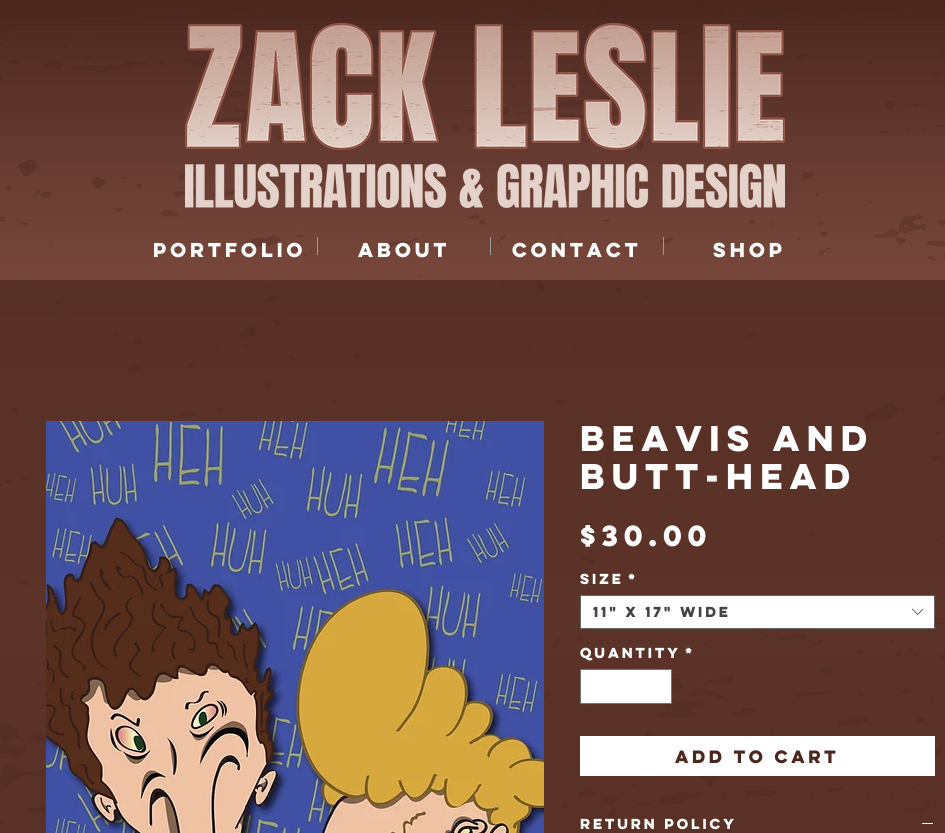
import math
import cairo

surface = cairo.ImageSurface(cairo.FORMAT_RGB24, 945, 833)
c = cairo.Context(surface)
options = cairo.FontOptions()
options.set_hint_metrics(cairo.HINT_METRICS_OFF)
options.set_hint_style(cairo.HINT_STYLE_NONE)
c.set_font_options(options)
c.set_miter_limit(4)
def C(code):
 c.set_source_rgb(*(v / 255 for v in bytes.fromhex(code[-6:])))
def F(family, size, italic, bold):
 c.select_font_face(family, cairo.FONT_SLANT_ITALIC if italic else cairo.FONT_SLANT_NORMAL, cairo.FONT_WEIGHT_BOLD if bold else cairo.FONT_WEIGHT_NORMAL)
 c.set_font_size(size)
def T(x, y, s):
 c.move_to(x, y)
 c.show_text(s)
def R(x, y, w, h):
 c.rectangle(x, y, w, h)
 c.fill()
def I(path, x, y, w, h):
 c.save()
 c.set_source_surface(cairo.ImageSurface.create_from_png(path), x, y)
 c.rectangle(x, y, w, h)
 c.fill()
 c.restore()
C('ffffff')
c.paint()
I('1.png',0,0,945,833)
I('2.png',185,23,600,185)
F('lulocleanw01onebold',18,0,1)
C('ffffff')
T(153,257,'PORTFOLIO')
C('999999')
R(317,237,1,18)
C('ffffff')
T(358,257,'ABOUT')
C('999999')
R(490,237,1,18)
C('ffffff')
T(512,257,'CONTACT')
C('999999')
R(663,237,1,18)
C('ffffff')
T(713,257,'SHOP')
c.set_source_rgba(0.294,0.153,0.118,0.75)
R(0,280,945,553)
I('3.png',46,421,498,412)
F('lulocleanw01onebold',32,0,1)
C('ffffff')
T(580,451,'BEAVIS AND')
T(580,489,'BUTT-HEAD')
F('lulocleanw01onebold',26,0,1)
T(580,546,'$30.00')
F('lulocleanw01onebold',13,0,1)
T(580,584,'Size')
T(628,584,'*')
c.rectangle(580.5,595.5,354,33)
c.fill_preserve()
C('666666')
c.set_line_width(1)
c.stroke()
C('444444')
T(593,617,'11" x 17" Wide')
I('4.png',912,608,12,7)
C('ffffff')
T(580,658,'Quantity')
T(685,658,'*')
c.rectangle(580.5,669.5,91,34)
c.fill_preserve()
C('747474')
c.stroke()
C('ffffff')
R(580,736,355,40)
F('lulocleanw01onebold',16,0,1)
C('4b271e')
T(675,763,'Add to Cart')
F('lulocleanw01onebold',13,0,1)
C('ffffff')
T(580,829,'Return Policy')
R(922,823,11,1)
surface.write_to_png('o.png')
